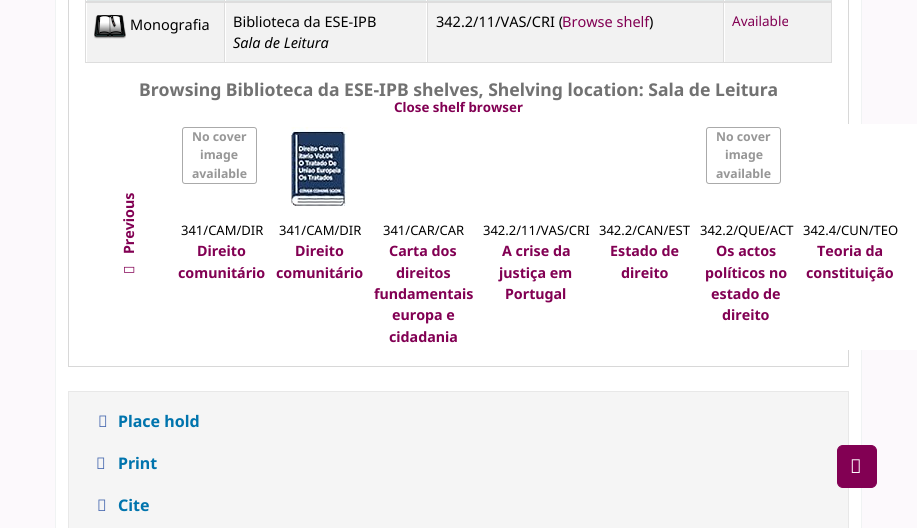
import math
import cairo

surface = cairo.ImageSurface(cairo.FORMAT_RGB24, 917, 528)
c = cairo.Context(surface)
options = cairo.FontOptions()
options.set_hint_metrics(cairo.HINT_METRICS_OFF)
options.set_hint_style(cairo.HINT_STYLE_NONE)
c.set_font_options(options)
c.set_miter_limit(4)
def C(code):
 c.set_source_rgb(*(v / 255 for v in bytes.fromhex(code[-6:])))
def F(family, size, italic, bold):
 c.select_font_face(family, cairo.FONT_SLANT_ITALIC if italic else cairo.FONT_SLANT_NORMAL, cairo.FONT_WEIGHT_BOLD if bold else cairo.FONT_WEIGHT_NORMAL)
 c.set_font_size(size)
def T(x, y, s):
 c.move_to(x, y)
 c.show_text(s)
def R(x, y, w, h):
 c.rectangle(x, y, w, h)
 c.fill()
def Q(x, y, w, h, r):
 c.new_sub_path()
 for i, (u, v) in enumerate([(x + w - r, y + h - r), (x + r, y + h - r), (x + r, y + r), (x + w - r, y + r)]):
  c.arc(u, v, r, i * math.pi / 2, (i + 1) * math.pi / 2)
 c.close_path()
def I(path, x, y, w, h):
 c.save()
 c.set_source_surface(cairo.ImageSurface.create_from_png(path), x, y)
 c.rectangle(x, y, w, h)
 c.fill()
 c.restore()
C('fcf9fc')
c.paint()
C('ffffff')
c.rectangle(55.5,-.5,806,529)
c.fill_preserve()
C('f0f3f3')
c.set_line_width(1)
c.stroke()
C('d8d8d8')
R(848,0,1,367)
R(68,366,781,1)
R(68,0,1,367)
C('e2e8e8')
R(87,0,137,1)
R(226,0,200,1)
R(428,0,295,1)
R(725,0,106,1)
C('dddddd')
R(85,1,747,2)
R(85,62,747,1)
C('f2f2f2')
R(87,3,137,59)
C('dddddd')
R(85,0,1,63)
I('1.png',94,14,32,25)
F('Noto Sans',14.5,0,0)
C('000000')
T(130,30,'Monografia')
C('f2f2f2')
R(226,3,200,59)
C('dddddd')
R(224,0,1,63)
C('000000')
T(233,27,'Biblioteca da ESE-IPB')
F('Noto Sans',14.5,1,0)
T(233,48,'Sala de Leitura')
C('f2f2f2')
R(428,3,295,59)
C('dddddd')
R(427,0,1,63)
F('Noto Sans',14.5,0,0)
C('000000')
T(436,27,'342.2/11/VAS/CRI (')
C('820053')
T(562,27,'Browse shelf')
C('000000')
T(649,27,')')
C('f2f2f2')
R(725,3,106,59)
C('dddddd')
R(831,0,1,63)
R(723,0,1,63)
F('Noto Sans',13.5,0,0)
C('820053')
T(732,26,'Available')
F('Noto Sans',17.6,0,1)
C('727272')
T(139,96,'Browsing Biblioteca da ESE-IPB shelves, Shelving location: Sala de Leitura')
F('Noto Sans',13.25,0,1)
C('820053')
T(394,112,'Close shelf browser')
Q(182.5,127.5,74,56,2.5)
C('aaaaaa')
c.stroke()
F('Noto Sans',12.25,0,1)
C('979797')
T(192,141,'No cover')
T(200,159,'image')
T(192,178,'available')
I('2.png',291,127,59,79)
Q(706.5,127.5,74,56,2.5)
C('aaaaaa')
c.stroke()
C('979797')
T(716,141,'No cover')
T(725,159,'image')
T(716,178,'available')
C('ffffff')
R(848,124,55,226)
R(903,124,14,226)
F('Noto Sans',14.25,0,1)
C('820053')
c.save()
c.translate(134,254)
c.rotate(-90 * math.pi / 180)
T(0,0,'Previous')
c.restore()
I('3.png',124,266,11,7)
F('Noto Sans',13,0,0)
C('000000')
T(181,235,'341/CAM/DIR')
F('Noto Sans',14.25,0,1)
C('820053')
T(197,256,'Direito')
T(178,278,'comunitário')
F('Noto Sans',13,0,0)
C('000000')
T(279,235,'341/CAM/DIR')
F('Noto Sans',14.25,0,1)
C('820053')
T(295,256,'Direito')
T(276,278,'comunitário')
F('Noto Sans',13,0,0)
C('000000')
T(383,235,'341/CAR/CAR')
F('Noto Sans',14.25,0,1)
C('820053')
T(389,256,'Carta dos')
T(396,278,'direitos')
T(374,299,'fundamentais')
T(392,320,'europa e')
T(389,342,'cidadania')
F('Noto Sans',13,0,0)
C('000000')
T(483,235,'342.2/11/VAS/CRI')
F('Noto Sans',14.25,0,1)
C('820053')
T(502,256,'A crise da')
T(499,278,'justiça em')
T(505,299,'Portugal')
F('Noto Sans',13,0,0)
C('000000')
T(599,235,'342.2/CAN/EST')
F('Noto Sans',14.25,0,1)
C('820053')
T(610,256,'Estado de')
T(621,278,'direito')
F('Noto Sans',13,0,0)
C('000000')
T(700,235,'342.2/QUE/ACT')
F('Noto Sans',14.25,0,1)
C('820053')
T(716,256,'Os actos')
T(705,278,'políticos no')
T(711,299,'estado de')
T(722,320,'direito')
F('Noto Sans',13,0,0)
C('000000')
T(803,235,'342.4/CUN/TEO')
F('Noto Sans',14.25,0,1)
C('820053')
T(817,256,'Teoria da')
T(806,278,'constituição')
C('f5f5f5')
c.rectangle(68.5,391.5,780,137)
c.fill_preserve()
C('e8e8e8')
c.stroke()
I('4.png',99,415,8,12)
F('Noto Sans',16,0,1)
C('0074ad')
T(118,427,'Place hold')
I('4.png',97,457,8,12)
T(118,469,'Print')
I('4.png',98,499,8,12)
T(118,511,'Cite')
C('820053')
Q(837.5,445.5,39,42,5.5)
c.fill_preserve()
c.stroke()
I('5.png',851,459,9,14)
surface.write_to_png('o.png')
